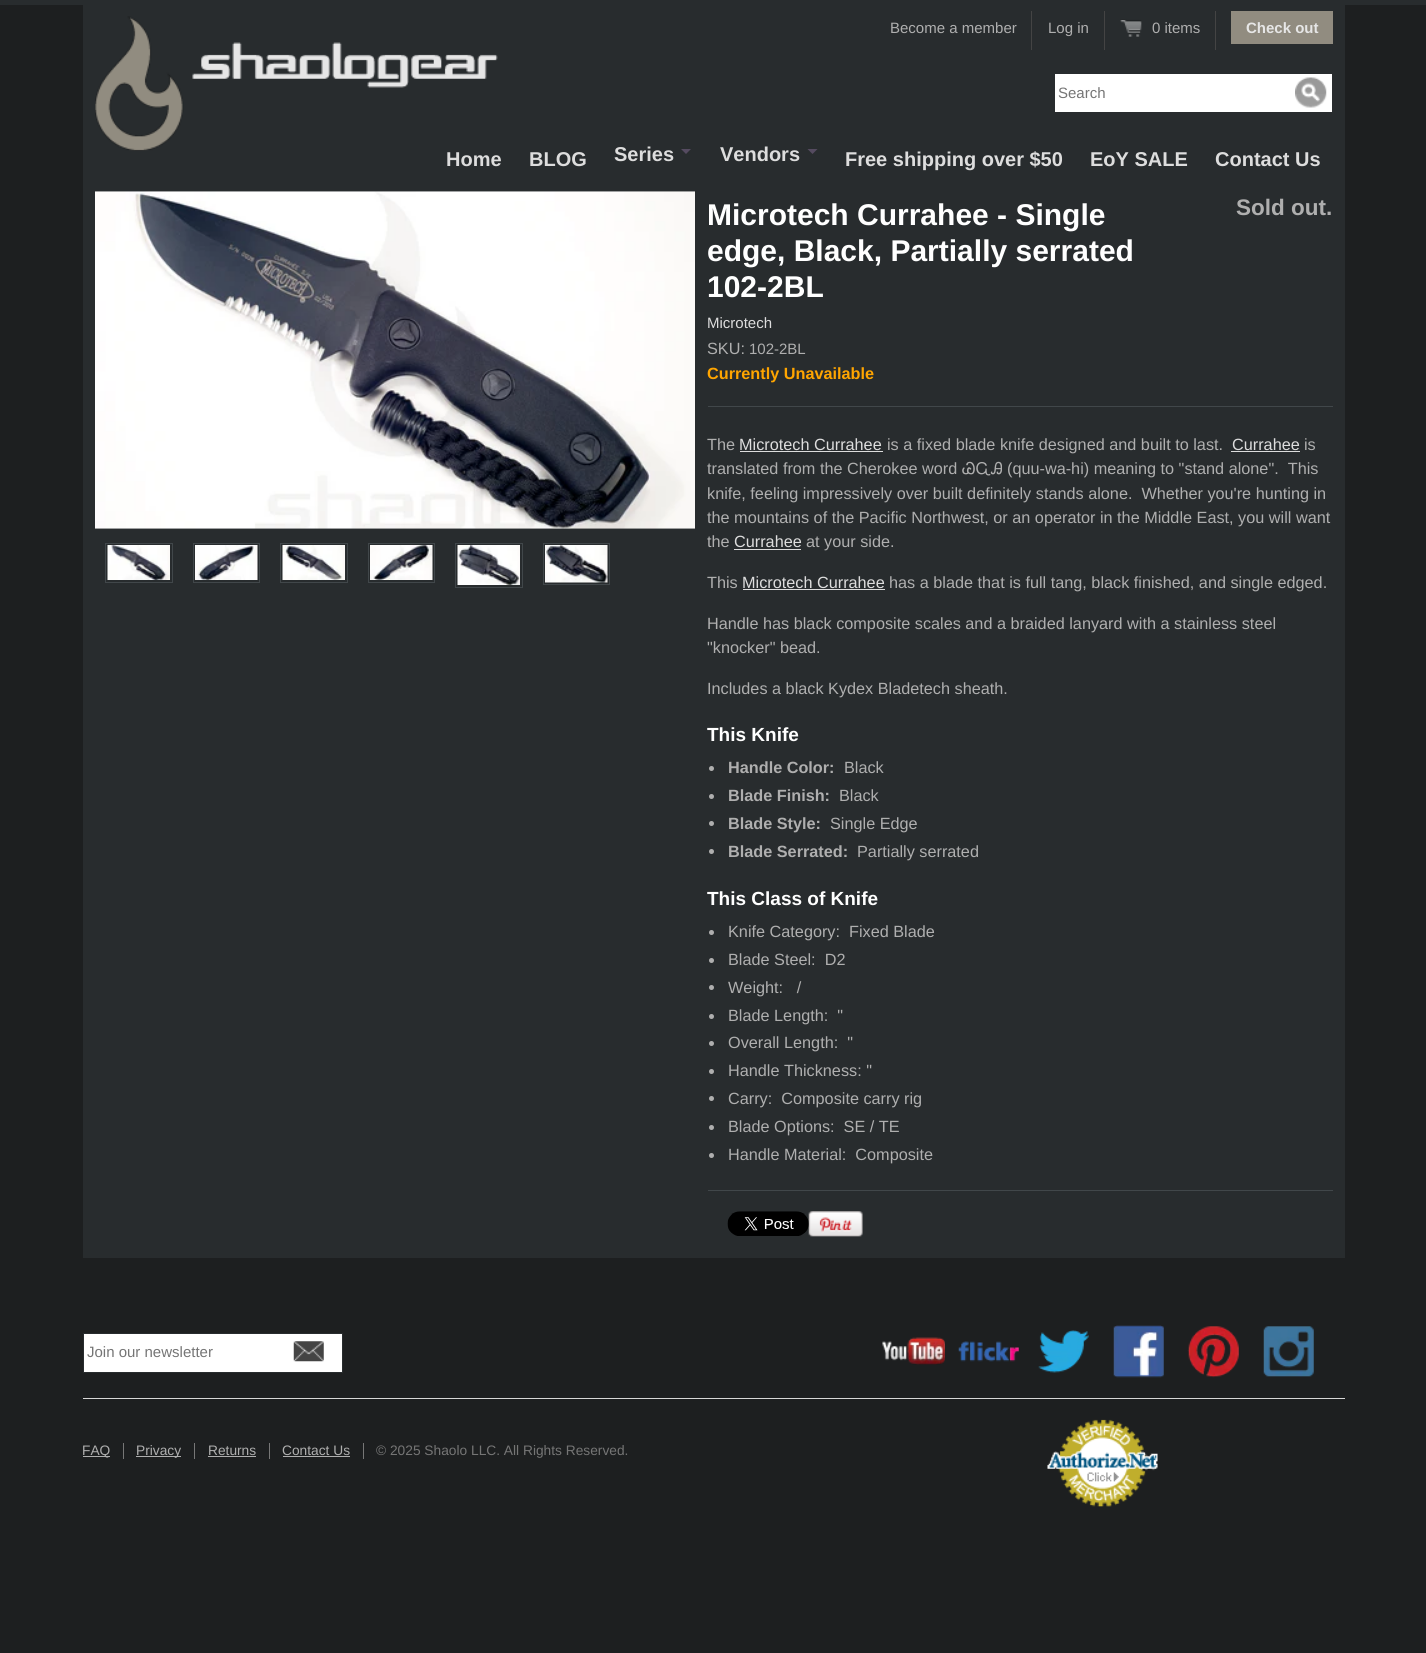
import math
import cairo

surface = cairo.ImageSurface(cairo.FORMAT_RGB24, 1426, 1653)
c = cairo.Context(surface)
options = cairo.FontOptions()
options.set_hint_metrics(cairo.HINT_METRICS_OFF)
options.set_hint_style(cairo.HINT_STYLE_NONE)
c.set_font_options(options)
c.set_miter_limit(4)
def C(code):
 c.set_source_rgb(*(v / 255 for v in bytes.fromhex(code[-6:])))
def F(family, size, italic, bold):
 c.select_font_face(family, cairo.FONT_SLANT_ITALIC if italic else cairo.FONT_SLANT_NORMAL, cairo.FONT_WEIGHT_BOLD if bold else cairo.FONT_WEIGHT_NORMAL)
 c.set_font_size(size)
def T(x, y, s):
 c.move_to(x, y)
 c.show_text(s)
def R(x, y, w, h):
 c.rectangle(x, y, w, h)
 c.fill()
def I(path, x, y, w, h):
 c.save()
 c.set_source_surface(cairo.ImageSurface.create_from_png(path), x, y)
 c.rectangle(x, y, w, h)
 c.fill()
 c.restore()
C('1d1f20')
c.paint()
C('282c2e')
R(0,0,1426,5)
R(83,5,1262,1253)
I('1.png',95,16,403,135)
C('444444')
R(1031,11,1,39)
F('Liberation Sans',15,0,0)
C('afafaf')
T(890,33,'Become a member')
C('444444')
R(1104,11,1,39)
C('afafaf')
T(1048,33,'Log in')
C('444444')
R(1215,11,1,39)
I('2.png',1120,19,22,18)
C('afafaf')
T(1152,33,'0 items')
C('918c80')
R(1231,11,102,33)
F('Liberation Sans',15,0,1)
C('e6e6e6')
T(1246,33,'Check out')
C('ffffff')
R(1055,74,277,38)
F('Liberation Sans',15,0,0)
C('757575')
T(1058,98,'Search')
I('3.png',1295,77,32,31)
F('Liberation Sans',20,0,1)
C('dddddd')
T(446,166,'Home')
T(529,166,'BLOG')
T(614,161,'Series')
C('554b60')
c.new_path()
c.move_to(681,149)
c.line_to(691,149)
c.line_to(686,154)
c.close_path()
c.fill()
C('dddddd')
T(720,161,'Vendors')
C('554b60')
c.new_path()
c.move_to(807.5,149)
c.line_to(817.5,149)
c.line_to(812.5,154)
c.close_path()
c.fill()
C('dddddd')
T(845,166,'Free shipping over $50')
T(1090,166,'EoY SALE')
T(1215,166,'Contact Us')
I('4.png',95,191,600,338)
c.rectangle(105.5,543.5,67,39)
C('41474a')
c.set_line_width(1)
c.stroke()
I('5.png',107,545,63,35)
c.rectangle(193.5,543.5,66,39)
c.stroke()
I('6.png',195,545,63,35)
c.rectangle(280.5,543.5,67,39)
c.stroke()
I('7.png',282,545,63,35)
c.rectangle(368.5,543.5,66,39)
c.stroke()
I('8.png',370,545,63,35)
c.rectangle(455.5,543.5,67,44)
c.stroke()
I('9.png',457,545,63,40)
c.rectangle(543.5,543.5,66,41)
c.stroke()
I('10.png',545,545,63,38)
R(708,406,625,1)
F('Liberation Sans',30,0,1)
C('ffffff')
T(707,225,'Microtech Currahee - Single')
T(707,261,'edge, Black, Partially serrated')
T(707,297,'102-2BL')
F('Liberation Sans',15,0,0)
C('dddddd')
T(707,328,'Microtech')
F('Liberation Sans',16.25,0,0)
C('afafaf')
T(707,354,'SKU:')
F('Liberation Sans',15,0,0)
T(749,354,'102-2BL')
F('Liberation Sans',16.25,0,1)
C('ffa500')
T(707,379,'Currently Unavailable')
F('Liberation Sans',22.5,0,1)
C('afafaf')
T(1236,215,'Sold out.')
F('Liberation Sans',16.25,0,0)
T(707,450,'The')
C('dddddd')
T(739,450,'Microtech Currahee')
R(740,451,143,1)
C('afafaf')
T(887,450,'is a fixed blade knife designed and built to last.')
C('dddddd')
T(1232,450,'Currahee')
R(1231,451,69,1)
C('afafaf')
T(1304,450,'is')
T(707,474,'translated from the Cherokee word')
F('FreeSans',16.25,0,0)
T(962,474,'ᏊᏩᎯ')
F('Liberation Sans',16.25,0,0)
T(1007,474,'(quu-wa-hi) meaning to "stand alone".  This')
T(707,499,'knife, feeling impressively over built definitely stands alone.  Whether you\'re hunting in')
T(707,523,'the mountains of the Pacific Northwest, or an operator in the Middle East, you will want')
T(707,547,'the')
C('dddddd')
T(734,547,'Currahee')
R(734,549,67,1)
C('afafaf')
T(806,547,'at your side.')
T(707,588,'This')
C('dddddd')
T(742,588,'Microtech Currahee')
R(743,589,142,1)
C('afafaf')
T(889,588,'has a blade that is full tang, black finished, and single edged.')
T(707,629,'Handle has black composite scales and a braided lanyard with a stainless steel')
T(707,653,'"knocker" bead.')
T(707,694,'Includes a black Kydex Bladetech sheath.')
F('Liberation Sans',19,0,1)
C('ffffff')
T(707,741,'This Knife')
C('afafaf')
c.new_path()
c.arc(711.5,768.5,2.5,0,2 * math.pi)
c.fill()
F('Liberation Sans',16.25,0,1)
T(728,773,'Handle Color:')
F('Liberation Sans',16.25,0,0)
T(844,773,'Black')
c.new_path()
c.arc(711.5,796.5,2.5,0,2 * math.pi)
c.fill()
F('Liberation Sans',16.25,0,1)
T(728,801,'Blade Finish:')
F('Liberation Sans',16.25,0,0)
T(839,801,'Black')
c.new_path()
c.arc(711.5,823.5,2.5,0,2 * math.pi)
c.fill()
F('Liberation Sans',16.25,0,1)
T(728,829,'Blade Style:')
F('Liberation Sans',16.25,0,0)
T(830,829,'Single Edge')
c.new_path()
c.arc(711.5,851.5,2.5,0,2 * math.pi)
c.fill()
F('Liberation Sans',16.25,0,1)
T(728,857,'Blade Serrated:')
F('Liberation Sans',16.25,0,0)
T(857,857,'Partially serrated')
F('Liberation Sans',19,0,1)
C('ffffff')
T(707,905,'This Class of Knife')
C('afafaf')
c.new_path()
c.arc(711.5,932.5,2.5,0,2 * math.pi)
c.fill()
F('Liberation Sans',16.25,0,0)
T(728,937,'Knife Category:  Fixed Blade')
c.new_path()
c.arc(711.5,960.5,2.5,0,2 * math.pi)
c.fill()
T(728,965,'Blade Steel:  D2')
c.new_path()
c.arc(711.5,987.5,2.5,0,2 * math.pi)
c.fill()
T(728,993,'Weight:   /')
c.new_path()
c.arc(711.5,1016.5,2.5,0,2 * math.pi)
c.fill()
T(728,1021,'Blade Length:  "')
c.new_path()
c.arc(711.5,1043.5,2.5,0,2 * math.pi)
c.fill()
T(728,1048,'Overall Length:  "')
c.new_path()
c.arc(711.5,1071.5,2.5,0,2 * math.pi)
c.fill()
T(728,1076,'Handle Thickness: "')
c.new_path()
c.arc(711.5,1098.5,2.5,0,2 * math.pi)
c.fill()
T(728,1104,'Carry:  Composite carry rig')
c.new_path()
c.arc(711.5,1127.5,2.5,0,2 * math.pi)
c.fill()
T(728,1132,'Blade Options:  SE / TE')
c.new_path()
c.arc(711.5,1155.5,2.5,0,2 * math.pi)
c.fill()
T(728,1160,'Handle Material:  Composite')
C('41474a')
R(708,1190,625,1)
I('12.png',808,1211,55,26)
I('11.png',727,1211,82,25)
C('ffffff')
c.rectangle(83.5,1333.5,259,39)
c.fill_preserve()
C('282c2e')
c.stroke()
F('Liberation Sans',15,0,0)
C('757575')
T(87,1357,'Join our newsletter')
I('13.png',293,1341,31,21)
I('14.png',882,1337,63,28)
I('15.png',958,1341,61,21)
I('16.png',1038,1330,51,43)
I('17.png',1113,1325,51,53)
I('18.png',1187,1326,52,52)
I('19.png',1263,1326,51,51)
C('d7d7d7')
R(83,1398,1262,1)
C('afafaf')
R(83,1456,27,1)
F('Liberation Sans',13.75,0,0)
T(82,1455,'FAQ')
C('777777')
R(123,1443,1,16)
C('afafaf')
R(136,1456,45,1)
T(136,1455,'Privacy')
C('777777')
R(194,1443,1,16)
C('afafaf')
T(208,1455,'Returns')
R(208,1456,48,1)
C('777777')
R(269,1443,1,16)
C('afafaf')
T(282,1455,'Contact Us')
R(283,1456,67,1)
C('777777')
R(363,1443,1,16)
C('757575')
T(376,1455,'© 2025 Shaolo LLC. All Rights Reserved.')
I('20.png',1047,1419,111,88)
surface.write_to_png('o.png')
